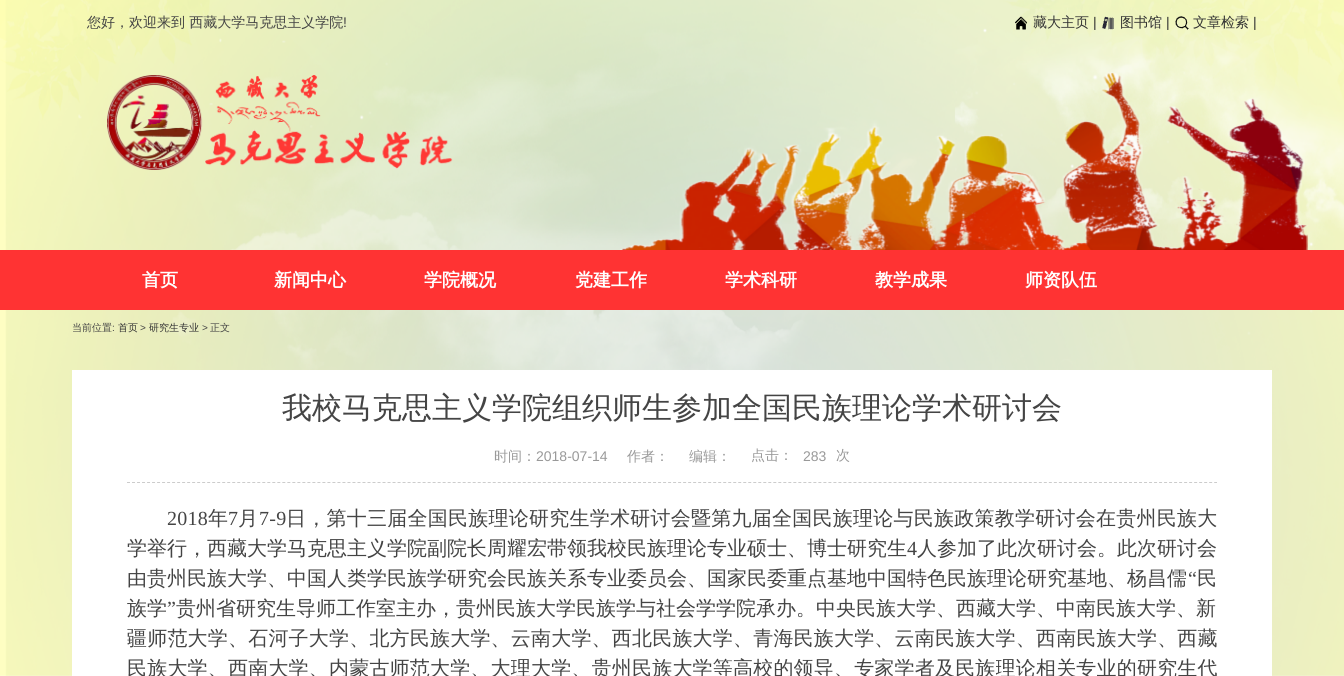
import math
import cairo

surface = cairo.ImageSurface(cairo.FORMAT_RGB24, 1344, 676)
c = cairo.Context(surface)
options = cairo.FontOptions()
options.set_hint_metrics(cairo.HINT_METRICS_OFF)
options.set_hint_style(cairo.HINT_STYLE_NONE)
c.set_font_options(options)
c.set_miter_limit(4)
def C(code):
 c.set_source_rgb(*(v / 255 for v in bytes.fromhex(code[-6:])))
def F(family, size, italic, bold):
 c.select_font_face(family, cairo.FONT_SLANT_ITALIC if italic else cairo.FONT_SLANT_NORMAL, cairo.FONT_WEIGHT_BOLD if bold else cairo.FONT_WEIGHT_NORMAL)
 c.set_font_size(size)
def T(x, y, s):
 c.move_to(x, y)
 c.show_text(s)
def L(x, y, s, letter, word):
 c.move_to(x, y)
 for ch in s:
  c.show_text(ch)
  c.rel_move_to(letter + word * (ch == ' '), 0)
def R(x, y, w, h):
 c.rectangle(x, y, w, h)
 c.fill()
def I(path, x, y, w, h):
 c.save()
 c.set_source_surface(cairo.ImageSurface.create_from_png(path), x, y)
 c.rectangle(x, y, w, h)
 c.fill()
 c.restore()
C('ffffff')
c.paint()
I('1.png',0,0,1344,676)
I('2.png',620,72,690,178)
F('WenQuanYi Zen Hei Medium',14,0,0)
C('444444')
T(87,27,'您好，欢迎来到 西藏大学马克思主义学院')
F('Liberation Sans',14,0,0)
T(343,27,'!')
I('3.png',1015,16,12,14)
F('WenQuanYi Zen Hei Medium',14,0,0)
C('333333')
T(1033,27,'藏大主页')
F('Liberation Sans',14,0,0)
T(1093,27,'|')
I('4.png',1102,16,12,14)
F('WenQuanYi Zen Hei Medium',14,0,0)
T(1120,27,'图书馆')
F('Liberation Sans',14,0,0)
T(1166,27,'|')
I('5.png',1175,16,14,14)
F('WenQuanYi Zen Hei Medium',14,0,0)
T(1193,27,'文章检索')
F('Liberation Sans',14,0,0)
T(1253,27,'|')
I('6.png',107,75,346,95)
C('ff3333')
R(0,250,1344,60)
F('WenQuanYi Zen Hei',18,0,1)
C('ffffff')
T(142,286,'首页')
T(274,286,'新闻中心')
T(424,286,'学院概况')
T(575,286,'党建工作')
T(725,286,'学术科研')
T(875,286,'教学成果')
T(1025,286,'师资队伍')
F('WenQuanYi Zen Hei Medium',10,0,0)
C('444444')
T(72,331,'当前位置')
F('Liberation Sans',10,0,0)
T(112,331,':')
F('WenQuanYi Zen Hei Medium',10,0,0)
C('333333')
T(118,331,'首页')
F('Liberation Sans',10,0,0)
C('444444')
T(140,331,'>')
F('WenQuanYi Zen Hei Medium',10,0,0)
C('333333')
T(149,331,'研究生专业')
F('Liberation Sans',10,0,0)
C('444444')
T(202,331,'>')
F('WenQuanYi Zen Hei Medium',10,0,0)
T(210,331,'正文')
C('ffffff')
R(72,370,1200,306)
c.new_path()
c.move_to(127,482.5)
c.line_to(1217,482.5)
C('cccccc')
c.set_line_width(1)
c.set_dash([3,2.01])
c.stroke()
F('WenQuanYi Zen Hei Medium',30,0,0)
C('444444')
T(282,418,'我校马克思主义学院组织师生参加全国民族理论学术研讨会')
F('WenQuanYi Zen Hei Medium',14,0,0)
C('999999')
T(494,461,'时间：')
F('Liberation Sans',14,0,0)
T(536,461,'2018-07-14')
F('WenQuanYi Zen Hei Medium',14,0,0)
T(627,461,'作者：')
T(689,461,'编辑：')
T(751,460,'点击：')
F('Liberation Sans',14,0,0)
T(803,461,'283')
F('WenQuanYi Zen Hei Medium',14,0,0)
T(836,460,'次')
F('Liberation Serif',20,0,0)
C('444444')
L(167,525,'2018',.25,0)
F('WenQuanYi Zen Hei Medium',20,0,0)
L(208,525,'年',.25,0)
F('Liberation Serif',20,0,0)
L(228,525,'7',.25,0)
F('WenQuanYi Zen Hei Medium',20,0,0)
L(238,525,'月',.25,0)
F('Liberation Serif',20,0,0)
L(259,525,'7-9',.25,0)
F('WenQuanYi Zen Hei Medium',20,0,0)
L(286,525,'日，第十三届全国民族理论研究生学术研讨会暨第九届全国民族理论与民族政策教学研讨会在贵州民族大',.25,0)
T(127,555,'学举行，西藏大学马克思主义学院副院长周耀宏带领我校民族理论专业硕士、博士研究生')
F('Liberation Serif',20,0,0)
T(907,555,'4')
F('WenQuanYi Zen Hei Medium',20,0,0)
T(917,555,'人参加了此次研讨会。此次研讨会')
T(127,585,'由贵州民族大学、中国人类学民族学研究会民族关系专业委员会、国家民委重点基地中国特色民族理论研究基地、杨昌儒')
F('Liberation Serif',20,0,0)
T(1188,585,'“')
F('WenQuanYi Zen Hei Medium',20,0,0)
T(1197,585,'民')
T(127,615,'族学')
F('Liberation Serif',20,0,0)
T(167,615,'”')
F('WenQuanYi Zen Hei Medium',20,0,0)
T(176,615,'贵州省研究生导师工作室主办，贵州民族大学民族学与社会学学院承办。中央民族大学、西藏大学、中南民族大学、新')
L(127,645,'疆师范大学、石河子大学、北方民族大学、云南大学、西北民族大学、青海民族大学、云南民族大学、西南民族大学、西藏',.2,0)
L(127,675,'民族大学、西南大学、内蒙古师范大学、大理大学、贵州民族大学等高校的领导、专家学者及民族理论相关专业的研究生代',.2,0)
surface.write_to_png('o.png')
